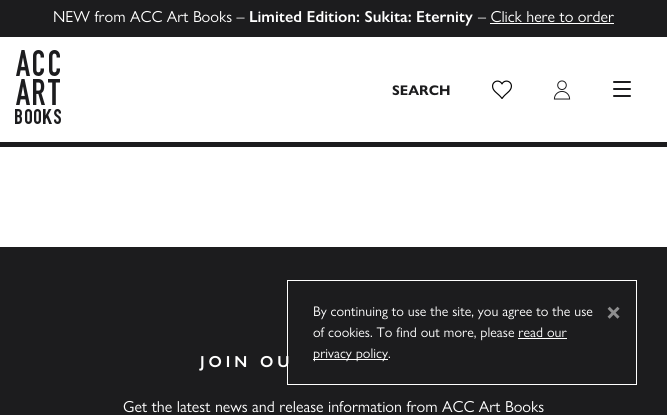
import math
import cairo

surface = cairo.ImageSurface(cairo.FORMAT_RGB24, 667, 415)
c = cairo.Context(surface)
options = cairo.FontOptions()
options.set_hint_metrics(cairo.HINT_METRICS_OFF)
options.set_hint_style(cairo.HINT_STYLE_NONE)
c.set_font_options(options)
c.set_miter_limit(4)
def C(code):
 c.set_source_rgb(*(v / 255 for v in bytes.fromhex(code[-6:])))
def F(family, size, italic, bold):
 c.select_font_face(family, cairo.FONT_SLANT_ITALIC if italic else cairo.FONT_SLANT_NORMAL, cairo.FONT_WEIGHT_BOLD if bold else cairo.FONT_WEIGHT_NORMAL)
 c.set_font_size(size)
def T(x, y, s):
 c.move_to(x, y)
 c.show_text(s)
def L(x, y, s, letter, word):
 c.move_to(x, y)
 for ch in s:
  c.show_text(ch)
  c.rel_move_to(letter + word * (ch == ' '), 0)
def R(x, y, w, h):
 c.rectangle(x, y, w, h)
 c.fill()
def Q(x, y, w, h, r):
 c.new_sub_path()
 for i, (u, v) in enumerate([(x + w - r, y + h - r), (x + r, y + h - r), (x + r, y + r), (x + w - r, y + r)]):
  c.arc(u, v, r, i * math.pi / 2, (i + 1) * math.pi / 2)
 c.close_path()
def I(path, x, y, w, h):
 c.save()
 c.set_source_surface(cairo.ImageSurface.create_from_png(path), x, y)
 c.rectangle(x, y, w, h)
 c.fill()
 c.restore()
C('ffffff')
c.paint()
C('1c1c1e')
R(0,142,667,5)
R(0,0,667,37)
F('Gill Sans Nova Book',16,0,0)
C('ffffff')
T(53,22,'NEW from ACC Art Books –')
F('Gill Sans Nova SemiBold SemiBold',16,0,0)
T(249,22,'Limited Edition: Sukita: Eternity')
F('Gill Sans Nova Book',16,0,0)
T(478,22,'– Click here to order')
R(490,23,124,1)
I('1.png',15,50,46,74)
F('Gill Sans Nova Book',14,0,1)
C('1c1c1e')
T(392,95,'SEARCH')
I('2.png',492,80,20,19)
I('3.png',553,80,18,20)
Q(613,88,18,2,1)
c.fill()
Q(613,81,18,2,1)
c.fill()
Q(613,95,18,2,1)
c.fill()
R(0,247,667,168)
c.rectangle(287.5,280.5,349,104)
C('ffffff')
c.set_line_width(1)
c.stroke()
F('Gill Sans Nova Book',14,0,0)
T(313,316,'By continuing to use the site, you agree to the use')
T(313,337,'of cookies. To find out more, please read our')
R(313,359,75,1)
T(313,358,'privacy policy.')
R(518,338,49,1)
F('Gill Sans Nova Book',24,0,1)
C('8e8e8f')
T(606,321,'×')
F('Gill Sans Nova SemiBold SemiBold',16,0,0)
C('ffffff')
L(200,367,'JOIN OU',4,0)
F('Gill Sans Nova Book',16,0,0)
T(123,412,'Get the latest news and release information from ACC Art Books')
surface.write_to_png('o.png')
